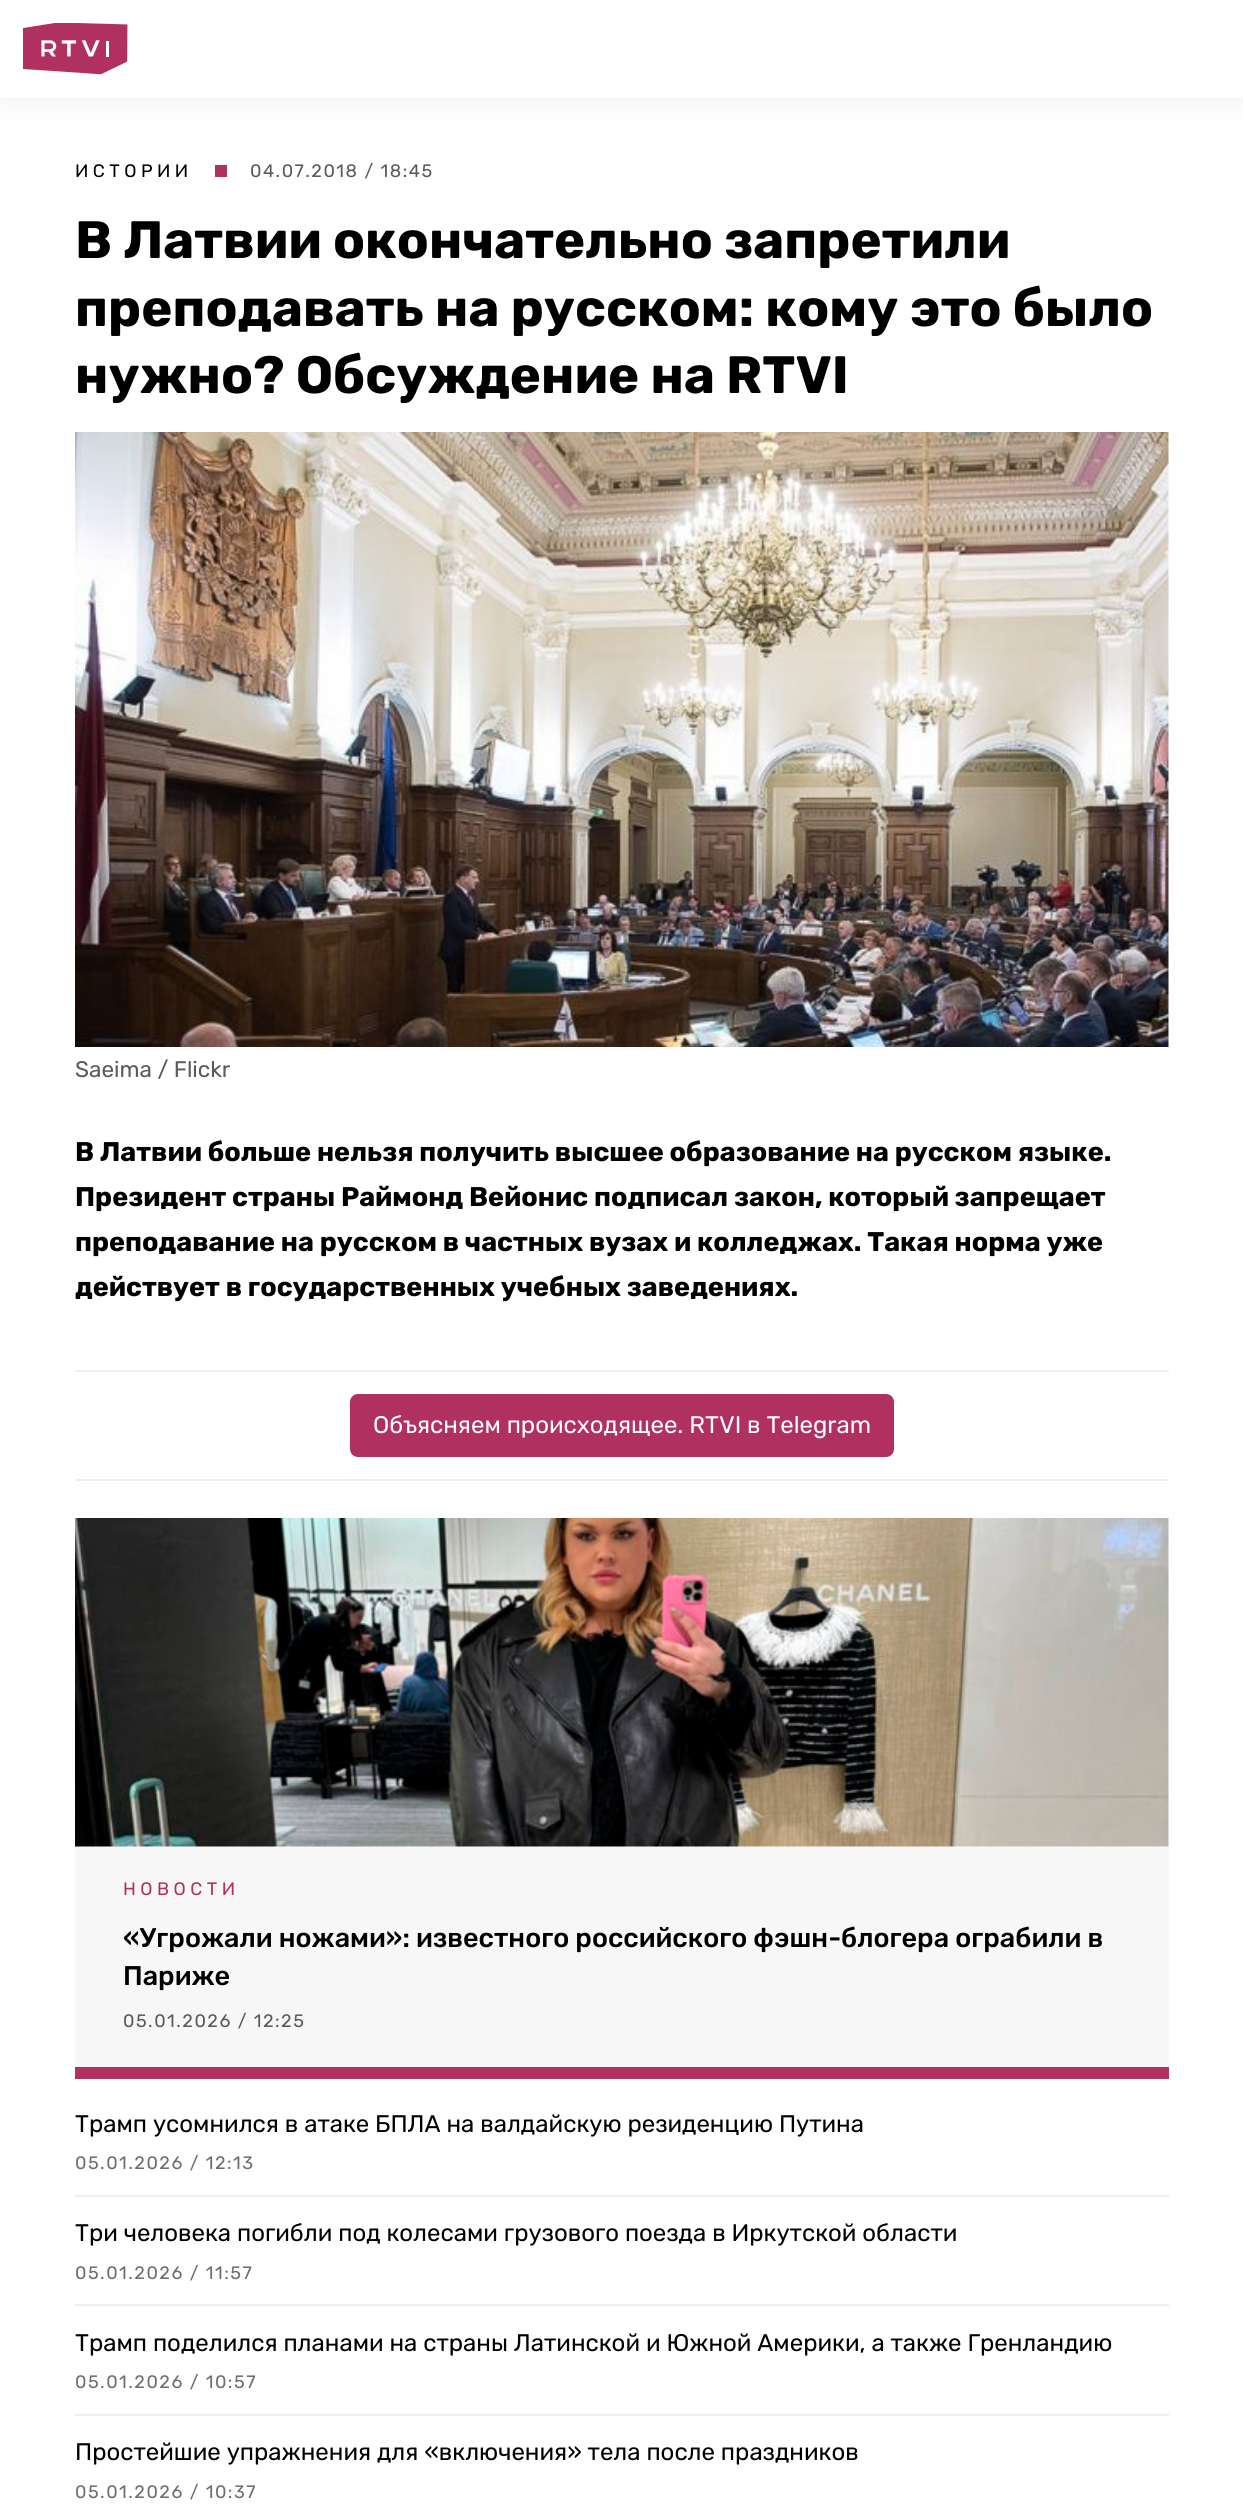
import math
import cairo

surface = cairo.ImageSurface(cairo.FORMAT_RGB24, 1243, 2512)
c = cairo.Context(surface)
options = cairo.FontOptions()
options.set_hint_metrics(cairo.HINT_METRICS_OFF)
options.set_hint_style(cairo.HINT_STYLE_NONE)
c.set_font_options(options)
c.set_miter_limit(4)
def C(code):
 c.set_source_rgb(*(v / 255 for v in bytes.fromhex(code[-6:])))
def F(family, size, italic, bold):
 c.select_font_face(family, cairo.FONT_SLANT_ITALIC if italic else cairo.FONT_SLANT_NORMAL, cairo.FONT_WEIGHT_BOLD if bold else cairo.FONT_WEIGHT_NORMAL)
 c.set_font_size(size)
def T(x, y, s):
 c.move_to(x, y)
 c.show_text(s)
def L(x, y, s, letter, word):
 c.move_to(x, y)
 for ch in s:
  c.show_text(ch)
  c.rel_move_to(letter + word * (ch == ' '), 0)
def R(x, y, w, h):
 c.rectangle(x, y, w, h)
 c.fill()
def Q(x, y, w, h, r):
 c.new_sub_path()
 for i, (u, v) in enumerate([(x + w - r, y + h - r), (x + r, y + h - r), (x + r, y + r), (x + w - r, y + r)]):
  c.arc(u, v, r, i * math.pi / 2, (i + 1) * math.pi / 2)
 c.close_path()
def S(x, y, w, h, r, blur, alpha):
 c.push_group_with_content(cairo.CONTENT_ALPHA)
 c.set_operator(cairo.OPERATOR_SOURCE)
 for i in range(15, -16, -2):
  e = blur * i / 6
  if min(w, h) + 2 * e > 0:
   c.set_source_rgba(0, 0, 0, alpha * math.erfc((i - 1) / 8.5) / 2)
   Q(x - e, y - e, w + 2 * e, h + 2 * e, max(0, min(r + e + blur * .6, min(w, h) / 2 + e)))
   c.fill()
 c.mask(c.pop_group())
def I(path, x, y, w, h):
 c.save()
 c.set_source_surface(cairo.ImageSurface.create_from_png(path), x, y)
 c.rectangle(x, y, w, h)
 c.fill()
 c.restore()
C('ffffff')
c.paint()
C('000000')
S(0,6,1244,98,0,15,.05)
C('ffffff')
R(0,0,1243,98)
I('1.png',23,23,105,52)
F('Rubik',18,0,0)
C('000000')
L(75,177,'ИСТОРИИ',4.5,0)
C('b03060')
R(215,165,12,12)
C('5a5a5a')
L(250,177,'04.07.2018 / 18:45',1.5,0)
F('Rubik',52.5,0,1)
C('000000')
T(75,258,'В Латвии окончательно запретили')
T(75,326,'преподавать на русском: кому это было')
T(75,393,'нужно? Обсуждение на RTVI')
I('2.png',75,432,1094,615)
F('Rubik',22.5,0,0)
C('5a5a5a')
T(75,1077,'Saeima / Flickr')
F('Rubik',27,0,1)
C('000000')
T(75,1161,'В Латвии больше нельзя получить высшее образование на русском языке.')
T(75,1206,'Президент страны Раймонд Вейонис подписал закон, который запрещает')
T(75,1251,'преподавание на русском в частных вузах и колледжах. Такая норма уже')
T(75,1296,'действует в государственных учебных заведениях.')
C('eeeeee')
R(75,1370,1094,2)
R(75,1479,1094,2)
C('b03060')
Q(350,1394,544,63,8)
c.fill()
F('Rubik',24,0,0)
C('ffffff')
T(373,1433,'Объясняем происходящее. RTVI в Telegram')
I('3.png',75,1518,1094,329)
C('f7f7f7')
R(75,1847,1094,220)
C('b03060')
R(75,2067,1094,12)
F('Rubik',18,0,0)
L(123,1895,'НОВОСТИ',4.5,0)
F('Rubik Medium',27,0,0)
C('000000')
T(123,1947,'«Угрожали ножами»: известного российского фэшн-блогера ограбили в')
T(123,1985,'Париже')
F('Rubik',18,0,0)
C('5a5a5a')
L(123,2027,'05.01.2026 / 12:25',1.5,0)
F('Rubik',24,0,0)
C('000000')
T(75,2132,'Трамп усомнился в атаке БПЛА на валдайскую резиденцию Путина')
F('Rubik',18,0,0)
C('6e6e6e')
L(75,2169,'05.01.2026 / 12:13',1.5,0)
C('eeeeee')
R(75,2195,1094,2)
F('Rubik',24,0,0)
C('000000')
T(75,2241,'Три человека погибли под колесами грузового поезда в Иркутской области')
F('Rubik',18,0,0)
C('6e6e6e')
L(75,2279,'05.01.2026 / 11:57',1.5,0)
C('eeeeee')
R(75,2304,1094,2)
F('Rubik',24,0,0)
C('000000')
T(75,2351,'Трамп поделился планами на страны Латинской и Южной Америки, а также Гренландию')
F('Rubik',18,0,0)
C('6e6e6e')
L(75,2388,'05.01.2026 / 10:57',1.5,0)
C('eeeeee')
R(75,2414,1094,2)
F('Rubik',24,0,0)
C('000000')
T(75,2460,'Простейшие упражнения для «включения» тела после праздников')
F('Rubik',18,0,0)
C('6e6e6e')
L(75,2498,'05.01.2026 / 10:37',1.5,0)
surface.write_to_png('o.png')
